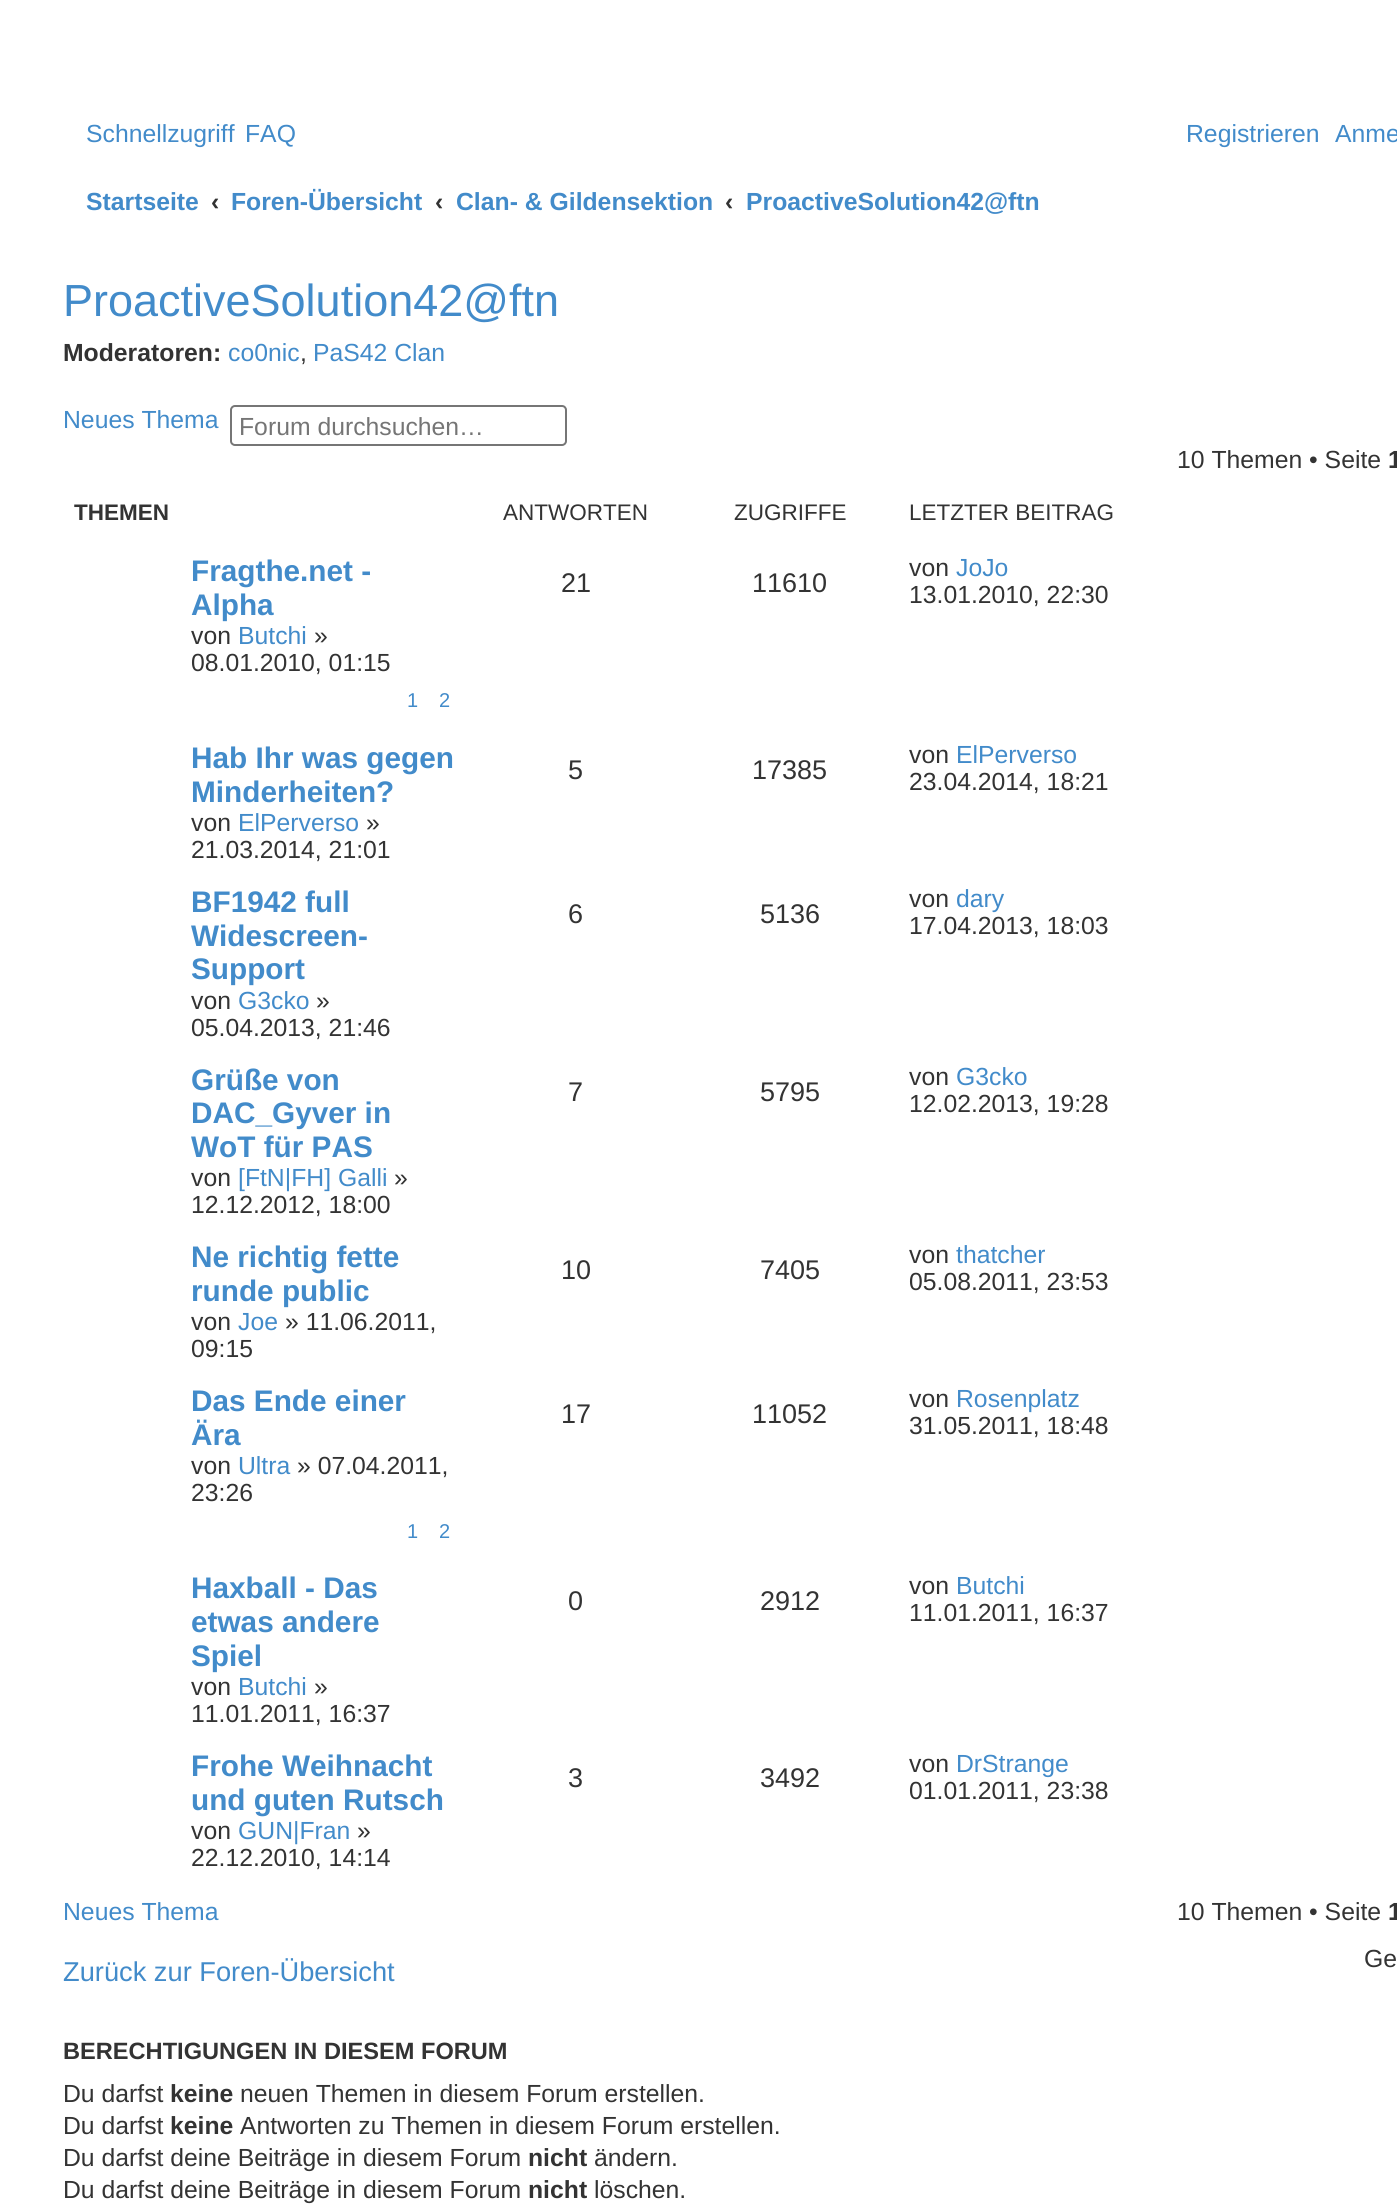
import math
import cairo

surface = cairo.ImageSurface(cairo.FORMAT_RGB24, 1397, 2207)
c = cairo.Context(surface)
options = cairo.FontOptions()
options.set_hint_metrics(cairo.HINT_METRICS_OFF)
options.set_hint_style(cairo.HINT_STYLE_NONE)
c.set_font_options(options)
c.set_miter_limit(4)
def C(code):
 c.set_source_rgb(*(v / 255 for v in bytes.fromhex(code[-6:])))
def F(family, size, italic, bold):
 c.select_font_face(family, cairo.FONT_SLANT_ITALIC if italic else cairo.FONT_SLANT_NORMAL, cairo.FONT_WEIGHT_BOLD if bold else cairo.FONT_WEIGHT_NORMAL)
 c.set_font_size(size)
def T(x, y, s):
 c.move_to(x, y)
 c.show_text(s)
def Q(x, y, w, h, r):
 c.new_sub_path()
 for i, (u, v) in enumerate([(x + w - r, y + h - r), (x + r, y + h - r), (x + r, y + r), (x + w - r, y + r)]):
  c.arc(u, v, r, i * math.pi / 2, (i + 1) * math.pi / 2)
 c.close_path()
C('ffffff')
c.paint()
F('Liberation Sans',24.75,0,0)
C('428bca')
T(86,142,'Schnellzugriff')
T(245,142,'FAQ')
T(1186,142,'Registrieren')
T(1335,142,'Anme')
F('Liberation Sans',24.75,0,1)
T(86,210,'Startseite')
C('333333')
T(211,210,'‹')
C('428bca')
T(231,210,'Foren-Übersicht')
C('333333')
T(435,210,'‹')
C('428bca')
T(456,210,'Clan- & Gildensektion')
C('333333')
T(725,210,'‹')
C('428bca')
T(746,210,'ProactiveSolution42@ftn')
F('Liberation Sans',45,0,0)
T(63,316,'ProactiveSolution42@ftn')
F('Liberation Sans',24.75,0,1)
C('333333')
T(63,361,'Moderatoren:')
F('Liberation Sans',24.75,0,0)
C('428bca')
T(228,361,'co0nic')
C('333333')
T(300,361,',')
C('428bca')
T(313,361,'PaS42 Clan')
T(63,428,'Neues Thema')
Q(231,406,335,39,4)
C('767676')
c.stroke()
C('757575')
T(239,435,'Forum durchsuchen…')
C('333333')
T(1177,468,'10 Themen • Seite')
F('Liberation Sans',24.75,0,1)
T(1388,468,'1')
F('Liberation Sans',22.5,0,1)
T(74,520,'THEMEN')
F('Liberation Sans',22.5,0,0)
T(503,520,'ANTWORTEN')
T(734,520,'ZUGRIFFE')
T(909,520,'LETZTER BEITRAG')
F('Liberation Sans',29.75,0,1)
C('428bca')
T(191,581,'Fragthe.net -')
T(191,615,'Alpha')
F('Liberation Sans',24.75,0,0)
C('333333')
T(191,644,'von')
C('428bca')
T(238,644,'Butchi')
C('333333')
T(314,644,'»')
T(191,671,'08.01.2010, 01:15')
F('Liberation Sans',20,0,0)
C('428bca')
T(407,707,'1')
T(439,707,'2')
F('Liberation Sans',27,0,0)
C('333333')
T(561,592,'21')
T(752,592,'11610')
F('Liberation Sans',24.75,0,0)
T(909,576,'von')
C('428bca')
T(956,576,'JoJo')
C('333333')
T(909,603,'13.01.2010, 22:30')
F('Liberation Sans',29.75,0,1)
C('428bca')
T(191,768,'Hab Ihr was gegen')
T(191,802,'Minderheiten?')
F('Liberation Sans',24.75,0,0)
C('333333')
T(191,831,'von')
C('428bca')
T(238,831,'ElPerverso')
C('333333')
T(366,831,'»')
T(191,858,'21.03.2014, 21:01')
F('Liberation Sans',27,0,0)
T(568,779,'5')
T(752,779,'17385')
F('Liberation Sans',24.75,0,0)
T(909,763,'von')
C('428bca')
T(956,763,'ElPerverso')
C('333333')
T(909,790,'23.04.2014, 18:21')
F('Liberation Sans',29.75,0,1)
C('428bca')
T(191,912,'BF1942 full')
T(191,946,'Widescreen-')
T(191,979,'Support')
F('Liberation Sans',24.75,0,0)
C('333333')
T(191,1009,'von')
C('428bca')
T(238,1009,'G3cko')
C('333333')
T(316,1009,'»')
T(191,1036,'05.04.2013, 21:46')
F('Liberation Sans',27,0,0)
T(568,923,'6')
T(760,923,'5136')
F('Liberation Sans',24.75,0,0)
T(909,907,'von')
C('428bca')
T(956,907,'dary')
C('333333')
T(909,934,'17.04.2013, 18:03')
F('Liberation Sans',29.75,0,1)
C('428bca')
T(191,1090,'Grüße von')
T(191,1123,'DAC_Gyver in')
T(191,1157,'WoT für PAS')
F('Liberation Sans',24.75,0,0)
C('333333')
T(191,1186,'von')
C('428bca')
T(238,1186,'[FtN|FH] Galli')
C('333333')
T(394,1186,'»')
T(191,1213,'12.12.2012, 18:00')
F('Liberation Sans',27,0,0)
T(568,1101,'7')
T(760,1101,'5795')
F('Liberation Sans',24.75,0,0)
T(909,1085,'von')
C('428bca')
T(956,1085,'G3cko')
C('333333')
T(909,1112,'12.02.2013, 19:28')
F('Liberation Sans',29.75,0,1)
C('428bca')
T(191,1267,'Ne richtig fette')
T(191,1301,'runde public')
F('Liberation Sans',24.75,0,0)
C('333333')
T(191,1330,'von')
C('428bca')
T(238,1330,'Joe')
C('333333')
T(285,1330,'» 11.06.2011,')
T(191,1357,'09:15')
F('Liberation Sans',27,0,0)
T(561,1279,'10')
T(760,1279,'7405')
F('Liberation Sans',24.75,0,0)
T(909,1263,'von')
C('428bca')
T(956,1263,'thatcher')
C('333333')
T(909,1290,'05.08.2011, 23:53')
F('Liberation Sans',29.75,0,1)
C('428bca')
T(191,1411,'Das Ende einer')
T(191,1445,'Ära')
F('Liberation Sans',24.75,0,0)
C('333333')
T(191,1474,'von')
C('428bca')
T(238,1474,'Ultra')
C('333333')
T(297,1474,'» 07.04.2011,')
T(191,1501,'23:26')
F('Liberation Sans',20,0,0)
C('428bca')
T(407,1538,'1')
T(439,1538,'2')
F('Liberation Sans',27,0,0)
C('333333')
T(561,1423,'17')
T(752,1423,'11052')
F('Liberation Sans',24.75,0,0)
T(909,1407,'von')
C('428bca')
T(956,1407,'Rosenplatz')
C('333333')
T(909,1434,'31.05.2011, 18:48')
F('Liberation Sans',29.75,0,1)
C('428bca')
T(191,1598,'Haxball - Das')
T(191,1632,'etwas andere')
T(191,1666,'Spiel')
F('Liberation Sans',24.75,0,0)
C('333333')
T(191,1695,'von')
C('428bca')
T(238,1695,'Butchi')
C('333333')
T(314,1695,'»')
T(191,1722,'11.01.2011, 16:37')
F('Liberation Sans',27,0,0)
T(568,1610,'0')
T(760,1610,'2912')
F('Liberation Sans',24.75,0,0)
T(909,1594,'von')
C('428bca')
T(956,1594,'Butchi')
C('333333')
T(909,1621,'11.01.2011, 16:37')
F('Liberation Sans',29.75,0,1)
C('428bca')
T(191,1776,'Frohe Weihnacht')
T(191,1810,'und guten Rutsch')
F('Liberation Sans',24.75,0,0)
C('333333')
T(191,1839,'von')
C('428bca')
T(238,1839,'GUN|Fran')
C('333333')
T(357,1839,'»')
T(191,1866,'22.12.2010, 14:14')
F('Liberation Sans',27,0,0)
T(568,1787,'3')
T(760,1787,'3492')
F('Liberation Sans',24.75,0,0)
T(909,1772,'von')
C('428bca')
T(956,1772,'DrStrange')
C('333333')
T(909,1799,'01.01.2011, 23:38')
C('428bca')
T(63,1920,'Neues Thema')
C('333333')
T(1177,1920,'10 Themen • Seite')
F('Liberation Sans',24.75,0,1)
T(1388,1920,'1')
F('Liberation Sans',27.25,0,0)
C('428bca')
T(63,1981,'Zurück zur Foren-Übersicht')
F('Liberation Sans',24.75,0,0)
C('333333')
T(1364,1967,'Ge')
F('Liberation Sans',23.6,0,1)
T(63,2059,'BERECHTIGUNGEN IN DIESEM FORUM')
F('Liberation Sans',24.75,0,0)
T(63,2102,'Du darfst')
F('Liberation Sans',24.75,0,1)
T(170,2102,'keine')
F('Liberation Sans',24.75,0,0)
T(240,2102,'neuen Themen in diesem Forum erstellen.')
T(63,2134,'Du darfst')
F('Liberation Sans',24.75,0,1)
T(170,2134,'keine')
F('Liberation Sans',24.75,0,0)
T(240,2134,'Antworten zu Themen in diesem Forum erstellen.')
T(63,2166,'Du darfst deine Beiträge in diesem Forum')
F('Liberation Sans',24.75,0,1)
T(528,2166,'nicht')
F('Liberation Sans',24.75,0,0)
T(594,2166,'ändern.')
T(63,2198,'Du darfst deine Beiträge in diesem Forum')
F('Liberation Sans',24.75,0,1)
T(528,2198,'nicht')
F('Liberation Sans',24.75,0,0)
T(594,2198,'löschen.')
surface.write_to_png('o.png')
